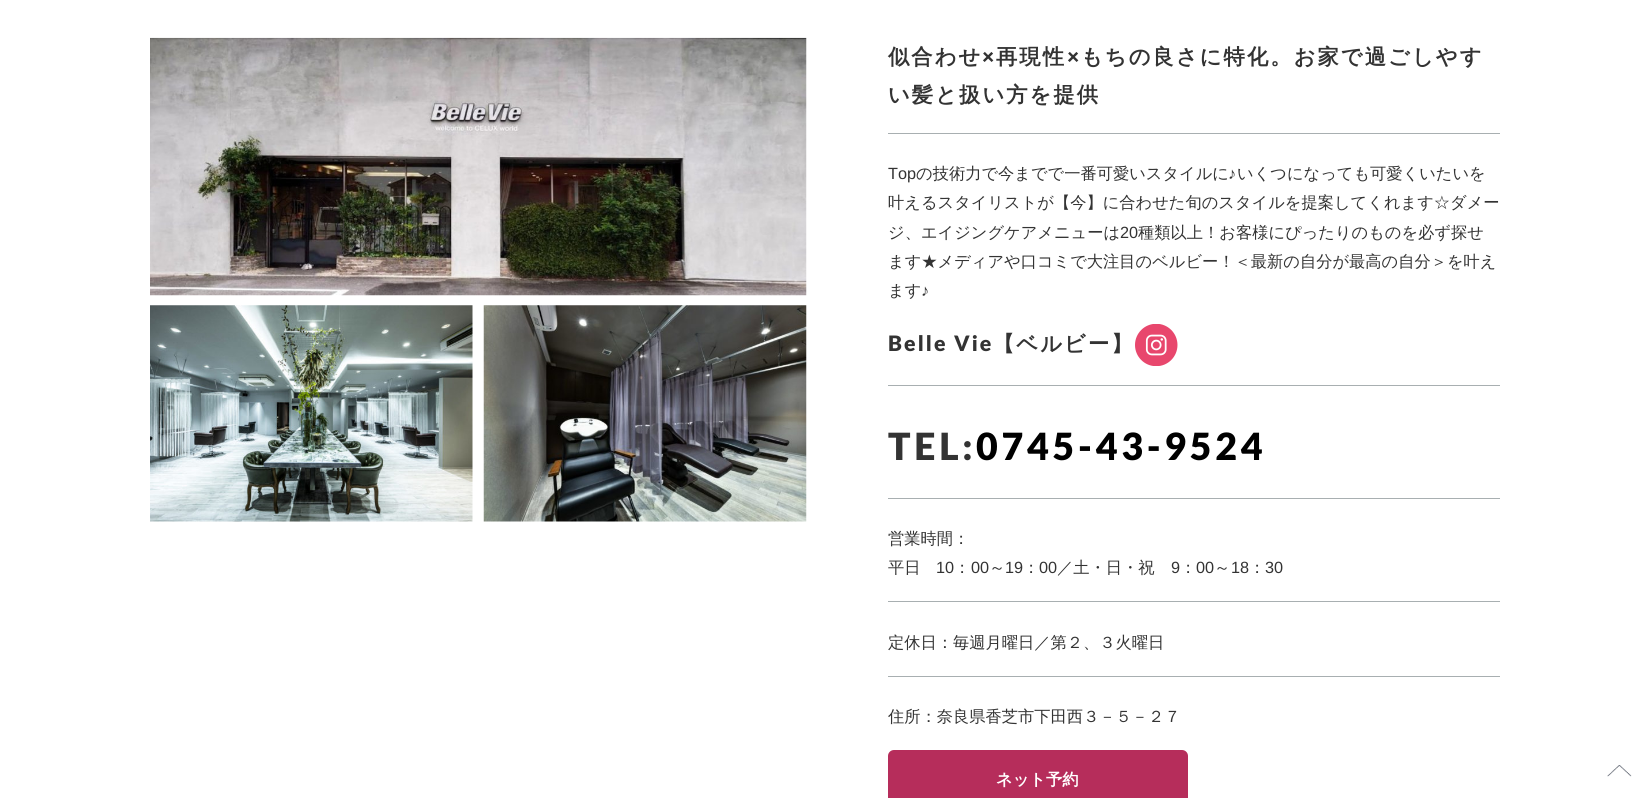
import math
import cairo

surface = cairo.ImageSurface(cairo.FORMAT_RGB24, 1650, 798)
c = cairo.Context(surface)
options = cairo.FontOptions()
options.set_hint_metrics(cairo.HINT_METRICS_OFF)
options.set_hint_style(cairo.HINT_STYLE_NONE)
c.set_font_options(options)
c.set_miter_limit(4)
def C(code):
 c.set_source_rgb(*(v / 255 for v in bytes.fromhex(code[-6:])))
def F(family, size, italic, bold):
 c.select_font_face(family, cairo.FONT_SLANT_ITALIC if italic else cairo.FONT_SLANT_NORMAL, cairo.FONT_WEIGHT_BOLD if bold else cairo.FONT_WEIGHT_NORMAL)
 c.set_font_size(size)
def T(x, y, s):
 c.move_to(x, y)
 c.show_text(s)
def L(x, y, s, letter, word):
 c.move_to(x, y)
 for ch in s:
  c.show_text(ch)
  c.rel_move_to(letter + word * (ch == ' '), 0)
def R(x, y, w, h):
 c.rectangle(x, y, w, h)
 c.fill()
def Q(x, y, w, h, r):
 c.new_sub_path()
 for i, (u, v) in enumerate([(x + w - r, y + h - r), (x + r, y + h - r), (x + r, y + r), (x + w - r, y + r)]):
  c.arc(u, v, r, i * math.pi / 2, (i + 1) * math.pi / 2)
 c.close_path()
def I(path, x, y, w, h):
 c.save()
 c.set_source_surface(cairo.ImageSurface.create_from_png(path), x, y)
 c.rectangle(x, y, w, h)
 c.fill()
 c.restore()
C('ffffff')
c.paint()
I('1.png',150,37,657,259)
I('2.png',150,305,323,217)
I('3.png',483,305,324,217)
F('WenQuanYi Zen Hei',21.25,0,1)
C('333333')
L(888,64,'似合わせ',2.1,0)
F('Lato Black',21.25,0,0)
L(982,64,'×',2.1,0)
F('WenQuanYi Zen Hei',21.25,0,1)
L(996,64,'再現性',2.1,0)
F('Lato Black',21.25,0,0)
L(1067,64,'×',2.1,0)
F('WenQuanYi Zen Hei',21.25,0,1)
L(1081,64,'もちの良さに特化。お家で過ごしやす',2.1,0)
L(888,102,'い髪と扱い方を提供',2.1,0)
C('a8afb1')
R(888,133,612,1)
F('Liberation Sans',16.25,0,0)
C('333333')
T(888,179,'Top')
F('WenQuanYi Zen Hei Medium',16.25,0,0)
T(916,179,'の技術力で今までで一番可愛いスタイルに')
F('Liberation Sans',16.25,0,0)
T(1228,179,'♪')
F('WenQuanYi Zen Hei Medium',16.25,0,0)
T(1237,179,'いくつになっても可愛くいたいを')
T(888,208,'叶えるスタイリストが【今】に合わせた旬のスタイルを提案してくれます☆ダメー')
T(888,238,'ジ、エイジングケアメニューは')
F('Liberation Sans',16.25,0,0)
T(1120,238,'20')
F('WenQuanYi Zen Hei Medium',16.25,0,0)
T(1138,238,'種類以上！お客様にぴったりのものを必ず探せ')
T(888,267,'ます★メディアや口コミで大注目のベルビー！＜最新の自分が最高の自分＞を叶え')
T(888,296,'ます')
F('Liberation Sans',16.25,0,0)
T(921,296,'♪')
F('Lato Black',21.25,0,0)
L(888,351,'Belle Vie',2.1,0)
F('WenQuanYi Zen Hei',21.25,0,1)
L(993,351,'【ベルビー】',2.1,0)
I('4.png',1135,324,43,42)
C('a8afb1')
R(888,385,612,1)
F('Lato Black',37.5,0,0)
C('333333')
L(888,460,'TEL:',3.75,0)
C('000000')
L(976,460,'0745-43-9524',3.75,0)
C('a8afb1')
R(888,498,612,1)
F('WenQuanYi Zen Hei Medium',16.25,0,0)
C('333333')
T(888,544,'営業時間：')
T(888,573,'平日')
F('Liberation Sans',16.25,0,0)
T(936,573,'10')
F('WenQuanYi Zen Hei Medium',16.25,0,0)
T(954,573,'：')
F('Liberation Sans',16.25,0,0)
T(971,573,'00')
F('WenQuanYi Zen Hei Medium',16.25,0,0)
T(989,573,'～')
F('Liberation Sans',16.25,0,0)
T(1005,573,'19')
F('WenQuanYi Zen Hei Medium',16.25,0,0)
T(1023,573,'：')
F('Liberation Sans',16.25,0,0)
T(1039,573,'00')
F('WenQuanYi Zen Hei Medium',16.25,0,0)
T(1057,573,'／土・日・祝')
F('Liberation Sans',16.25,0,0)
T(1171,573,'9')
F('WenQuanYi Zen Hei Medium',16.25,0,0)
T(1180,573,'：')
F('Liberation Sans',16.25,0,0)
T(1196,573,'00')
F('WenQuanYi Zen Hei Medium',16.25,0,0)
T(1214,573,'～')
F('Liberation Sans',16.25,0,0)
T(1231,573,'18')
F('WenQuanYi Zen Hei Medium',16.25,0,0)
T(1249,573,'：')
F('Liberation Sans',16.25,0,0)
T(1265,573,'30')
C('a8afb1')
R(888,601,612,1)
F('WenQuanYi Zen Hei Medium',16.25,0,0)
C('333333')
T(888,648,'定休日：毎週月曜日／第２、３火曜日')
C('a8afb1')
R(888,676,612,1)
C('333333')
T(888,722,'住所：奈良県香芝市下田西３－５－２７')
C('b62d5b')
Q(888,750,300,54,6)
c.fill()
F('WenQuanYi Zen Hei',16.25,0,1)
C('ffffff')
T(996,785,'ネット予約')
I('5.png',1607,765,25,12)
surface.write_to_png('o.png')
